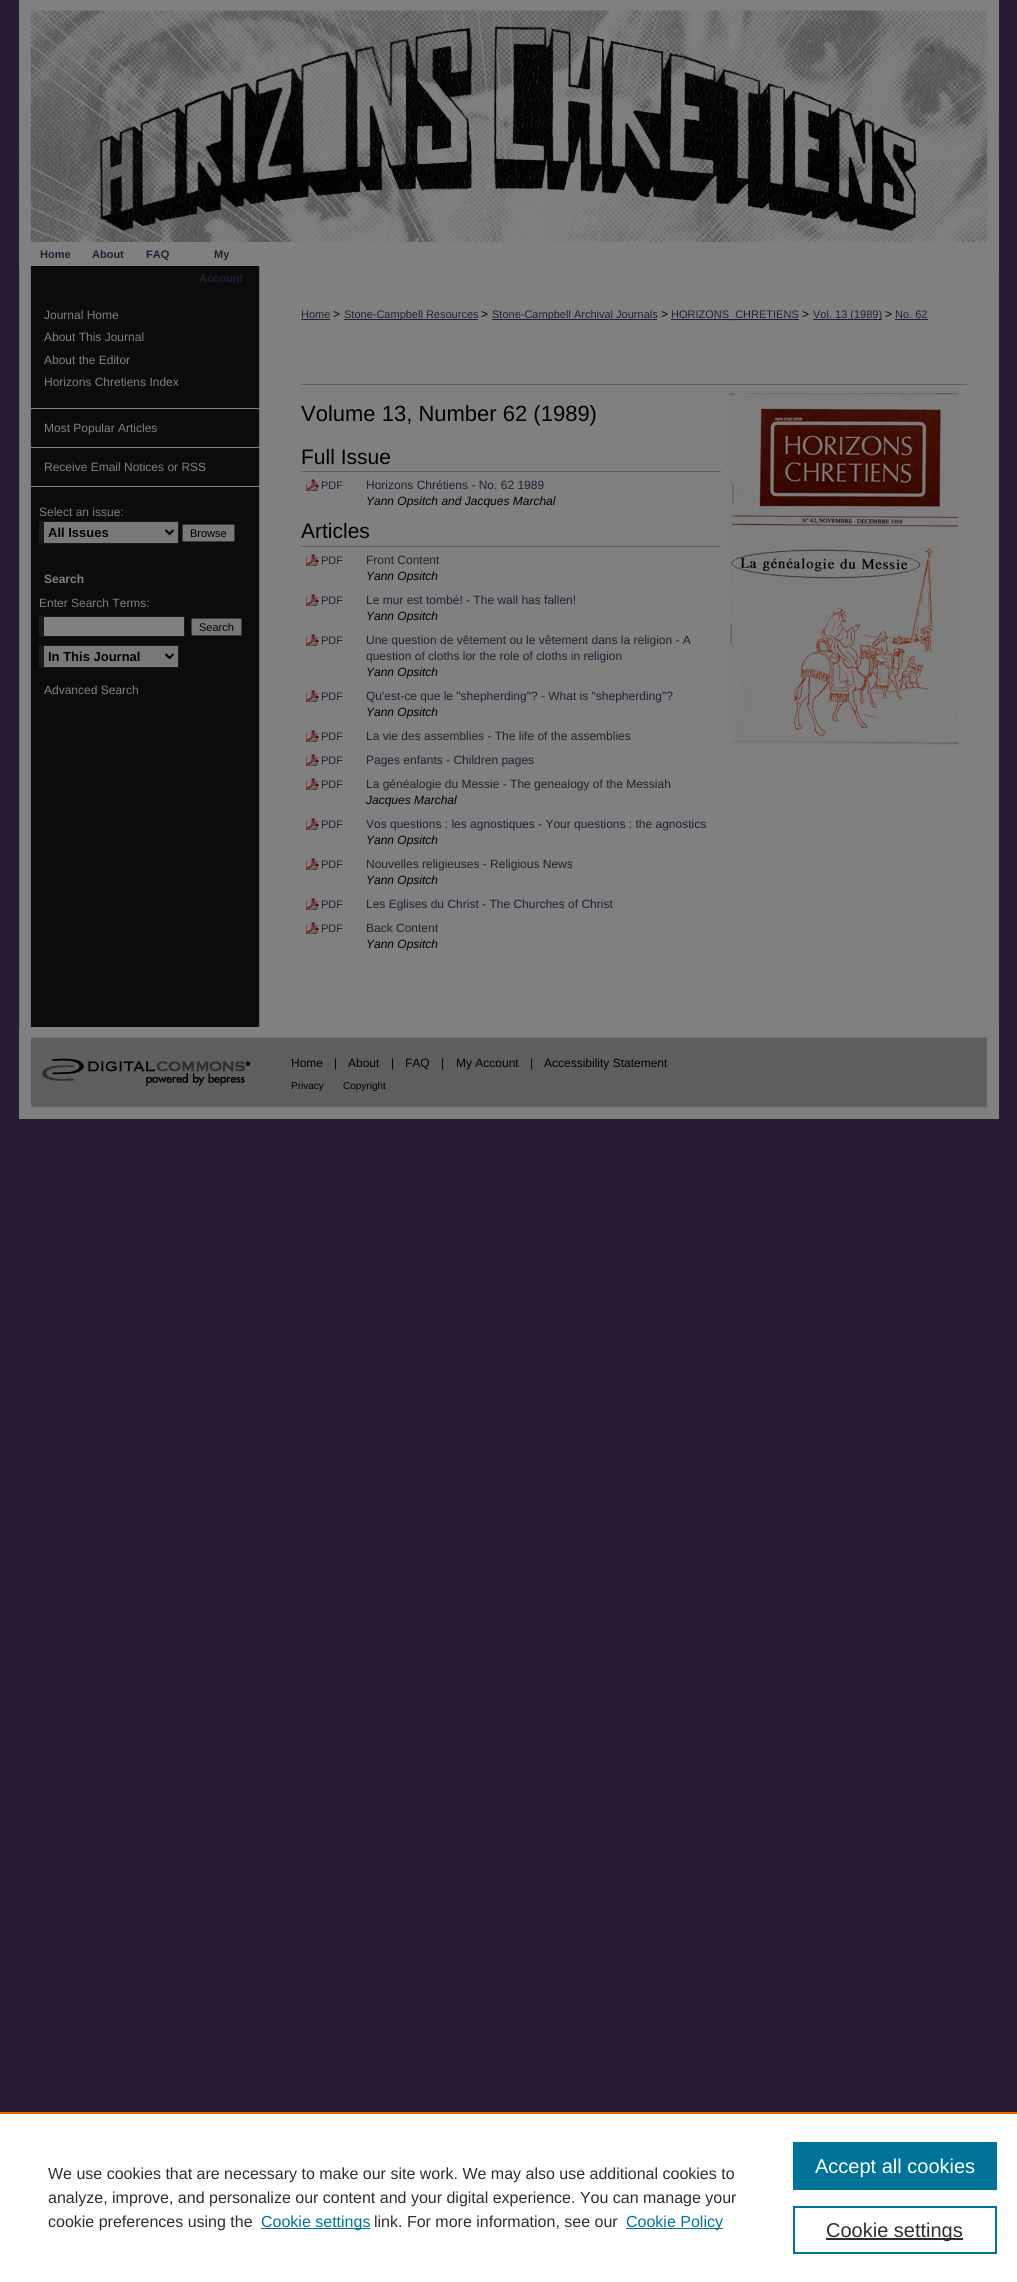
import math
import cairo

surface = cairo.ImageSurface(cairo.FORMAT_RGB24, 1017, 2282)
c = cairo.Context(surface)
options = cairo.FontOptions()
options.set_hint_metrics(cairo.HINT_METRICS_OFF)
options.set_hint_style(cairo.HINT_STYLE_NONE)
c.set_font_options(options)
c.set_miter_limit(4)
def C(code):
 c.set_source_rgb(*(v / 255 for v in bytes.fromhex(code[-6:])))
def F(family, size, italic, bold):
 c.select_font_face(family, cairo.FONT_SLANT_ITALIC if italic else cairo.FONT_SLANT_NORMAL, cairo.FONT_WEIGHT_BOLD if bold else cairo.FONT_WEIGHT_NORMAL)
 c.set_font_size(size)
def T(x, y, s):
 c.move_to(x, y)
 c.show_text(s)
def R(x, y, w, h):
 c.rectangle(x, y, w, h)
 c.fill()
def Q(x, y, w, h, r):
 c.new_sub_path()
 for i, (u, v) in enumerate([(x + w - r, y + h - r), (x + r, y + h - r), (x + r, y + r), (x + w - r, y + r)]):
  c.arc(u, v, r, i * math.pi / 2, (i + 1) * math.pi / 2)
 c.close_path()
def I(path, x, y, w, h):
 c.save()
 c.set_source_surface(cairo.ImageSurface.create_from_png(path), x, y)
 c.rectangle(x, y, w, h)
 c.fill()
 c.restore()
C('271c33')
c.paint()
C('808080')
R(19,0,980,10)
I('1.png',19,10,980,232)
R(19,242,980,24)
F('Liberation Sans',11,0,1)
C('271c33')
T(40,258,'Home')
T(92,258,'About')
T(146,258,'FAQ')
T(214,258,'My')
I('2.png',19,266,980,761)
T(199,282,'Account')
F('Liberation Sans',12,0,0)
C('808080')
T(44,319,'Journal Home')
T(44,341,'About This Journal')
T(44,364,'About the Editor')
T(44,386,'Horizons Chretiens Index')
R(29,408,231,1)
R(29,447,231,1)
T(44,432,'Most Popular Articles')
R(29,486,231,1)
T(44,471,'Receive Email Notices or RSS')
T(39,516,'Select an issue:')
C('787878')
R(44,522,134,21)
C('191919')
R(39,521,140,1)
R(178,521,1,23)
R(39,543,140,1)
R(39,521,5,23)
c.new_path()
c.move_to(165.5,530)
c.line_to(169.5,534)
c.line_to(173.5,530)
C('000000')
c.stroke()
F('Liberation Sans',13,0,1)
T(48,537,'All Issues')
C('787878')
Q(182.5,524.5,52,17,1.5)
c.fill_preserve()
C('3b3b3b')
c.set_line_width(1)
c.stroke()
F('Liberation Sans',11,0,0)
C('000000')
T(190,537,'Browse')
F('Liberation Sans',12,0,1)
C('808080')
T(44,583,'Search')
F('Liberation Sans',12,0,0)
T(39,607,'Enter Search Terms:')
R(44,617,140,19)
C('191919')
R(39,616,146,1)
R(184,616,1,21)
R(39,636,146,1)
R(39,616,5,21)
C('787878')
Q(191.5,618.5,50,17,1.5)
c.fill_preserve()
C('3b3b3b')
c.stroke()
F('Liberation Sans',11,0,0)
C('000000')
T(199,631,'Search')
C('787878')
R(44,646,134,21)
C('191919')
R(39,645,140,1)
R(178,645,1,23)
R(39,667,140,1)
R(39,645,5,23)
c.new_path()
c.move_to(165.5,654)
c.line_to(169.5,658)
c.line_to(173.5,654)
C('000000')
c.set_line_width(2)
c.stroke()
F('Liberation Sans',13,0,1)
T(48,661,'In This Journal')
F('Liberation Sans',12,0,0)
C('808080')
T(44,694,'Advanced Search')
F('Liberation Sans',11,0,0)
C('271c33')
T(301,318,'Home')
R(301,319,29,1)
F('Liberation Sans',12,0,0)
C('000000')
T(333,318,'>')
C('271c33')
R(344,319,134,1)
F('Liberation Sans',11,0,0)
T(344,318,'Stone-Campbell Resources')
F('Liberation Sans',12,0,0)
C('000000')
T(481,318,'>')
C('271c33')
R(492,319,165,1)
F('Liberation Sans',11,0,0)
T(492,318,'Stone-Campbell Archival Journals')
F('Liberation Sans',12,0,0)
C('000000')
T(661,318,'>')
C('271c33')
R(671,319,128,1)
F('Liberation Sans',11,0,0)
T(671,318,'HORIZONS_CHRETIENS')
F('Liberation Sans',12,0,0)
C('000000')
T(802,318,'>')
C('271c33')
R(813,319,69,1)
F('Liberation Sans',11,0,0)
T(813,318,'Vol. 13 (1989)')
F('Liberation Sans',12,0,0)
C('000000')
T(885,318,'>')
F('Liberation Sans',11,0,0)
C('271c33')
T(895,318,'No. 62')
R(895,319,33,1)
C('606060')
R(301,384,666,1)
F('Liberation Sans',22,0,0)
C('000000')
T(301,421,'Volume 13, Number 62 (1989)')
C('606060')
R(301,471,420,1)
F('Liberation Sans',21,0,0)
C('000000')
T(301,464,'Full Issue')
I('3.png',306,479,13,12)
F('Liberation Sans',11,0,0)
C('271c33')
T(321,489,'PDF')
F('Liberation Sans',12,0,0)
T(366,489,'Horizons Chrétiens - No. 62 1989')
F('Liberation Sans',12,1,0)
C('000000')
T(366,505,'Yann Opsitch and Jacques Marchal')
C('606060')
R(301,546,420,1)
F('Liberation Sans',21,0,0)
C('000000')
T(301,538,'Articles')
I('3.png',306,554,13,12)
F('Liberation Sans',11,0,0)
C('271c33')
T(321,564,'PDF')
F('Liberation Sans',12,0,0)
T(366,564,'Front Content')
F('Liberation Sans',12,1,0)
C('000000')
T(366,580,'Yann Opsitch')
I('3.png',306,594,13,12)
F('Liberation Sans',11,0,0)
C('271c33')
T(321,604,'PDF')
F('Liberation Sans',12,0,0)
T(366,604,'Le mur est tombé! - The wall has fallen!')
F('Liberation Sans',12,1,0)
C('000000')
T(366,620,'Yann Opsitch')
I('3.png',306,634,13,12)
F('Liberation Sans',11,0,0)
C('271c33')
T(321,644,'PDF')
F('Liberation Sans',12,0,0)
T(366,644,'Une question de vêtement ou le vêtement dans la religion - A')
T(366,660,'question of cloths lor the role of cloths in religion')
F('Liberation Sans',12,1,0)
C('000000')
T(366,676,'Yann Opsitch')
I('3.png',306,690,13,12)
F('Liberation Sans',11,0,0)
C('271c33')
T(321,700,'PDF')
F('Liberation Sans',12,0,0)
T(366,700,'Qu\'est-ce que le "shepherding"? - What is "shepherding"?')
F('Liberation Sans',12,1,0)
C('000000')
T(366,716,'Yann Opsitch')
I('3.png',306,730,13,12)
F('Liberation Sans',11,0,0)
C('271c33')
T(321,740,'PDF')
F('Liberation Sans',12,0,0)
T(366,740,'La vie des assemblies - The life of the assemblies')
I('3.png',306,754,13,12)
F('Liberation Sans',11,0,0)
T(321,764,'PDF')
F('Liberation Sans',12,0,0)
T(366,764,'Pages enfants - Children pages')
I('3.png',306,778,13,12)
F('Liberation Sans',11,0,0)
T(321,788,'PDF')
F('Liberation Sans',12,0,0)
T(366,788,'La généalogie du Messie - The genealogy of the Messiah')
F('Liberation Sans',12,1,0)
C('000000')
T(366,804,'Jacques Marchal')
I('3.png',306,818,13,12)
F('Liberation Sans',11,0,0)
C('271c33')
T(321,828,'PDF')
F('Liberation Sans',12,0,0)
T(366,828,'Vos questions : les agnostiques - Your questions : the agnostics')
F('Liberation Sans',12,1,0)
C('000000')
T(366,844,'Yann Opsitch')
I('3.png',306,858,13,12)
F('Liberation Sans',11,0,0)
C('271c33')
T(321,868,'PDF')
F('Liberation Sans',12,0,0)
T(366,868,'Nouvelles religieuses - Religious News')
F('Liberation Sans',12,1,0)
C('000000')
T(366,884,'Yann Opsitch')
I('3.png',306,898,13,12)
F('Liberation Sans',11,0,0)
C('271c33')
T(321,908,'PDF')
F('Liberation Sans',12,0,0)
T(366,908,'Les Eglises du Christ - The Churches of Christ')
I('3.png',306,922,13,12)
F('Liberation Sans',11,0,0)
T(321,932,'PDF')
F('Liberation Sans',12,0,0)
T(366,932,'Back Content')
F('Liberation Sans',12,1,0)
C('000000')
T(366,948,'Yann Opsitch')
I('4.png',729,393,229,352)
I('5.png',19,1027,980,92)
I('6.png',42,1058,208,28)
F('Liberation Sans',12,0,0)
T(291,1067,'Home')
T(334,1067,'|')
T(348,1067,'About')
T(391,1067,'|')
T(405,1067,'FAQ')
T(441,1067,'|')
T(456,1067,'My Account')
T(530,1067,'|')
T(544,1067,'Accessibility Statement')
F('Liberation Sans',10,0,0)
T(291,1089,'Privacy')
T(343,1089,'Copyright')
C('ffffff')
R(0,2114,1017,168)
C('eb6500')
R(0,2112,1017,2)
F('Liberation Sans',16,0,0)
C('2e2e2e')
T(48,2179,'We use cookies that are necessary to make our site work. We may also use additional cookies to')
T(48,2203,'analyze, improve, and personalize our content and your digital experience. You can manage your')
T(48,2227,'cookie preferences using the')
C('007398')
R(261,2228,109,1)
T(261,2227,'Cookie settings')
C('2e2e2e')
T(374,2227,'link. For more information, see our')
C('007398')
R(626,2228,97,1)
T(626,2227,'Cookie Policy')
R(793,2142,204,48)
F('Liberation Sans',20,0,0)
C('ffffff')
T(815,2173,'Accept all cookies')
c.rectangle(794,2207,202,46)
C('007398')
c.stroke()
C('2e2e2e')
R(826,2238,137,2)
T(826,2237,'Cookie settings')
surface.write_to_png('o.png')
